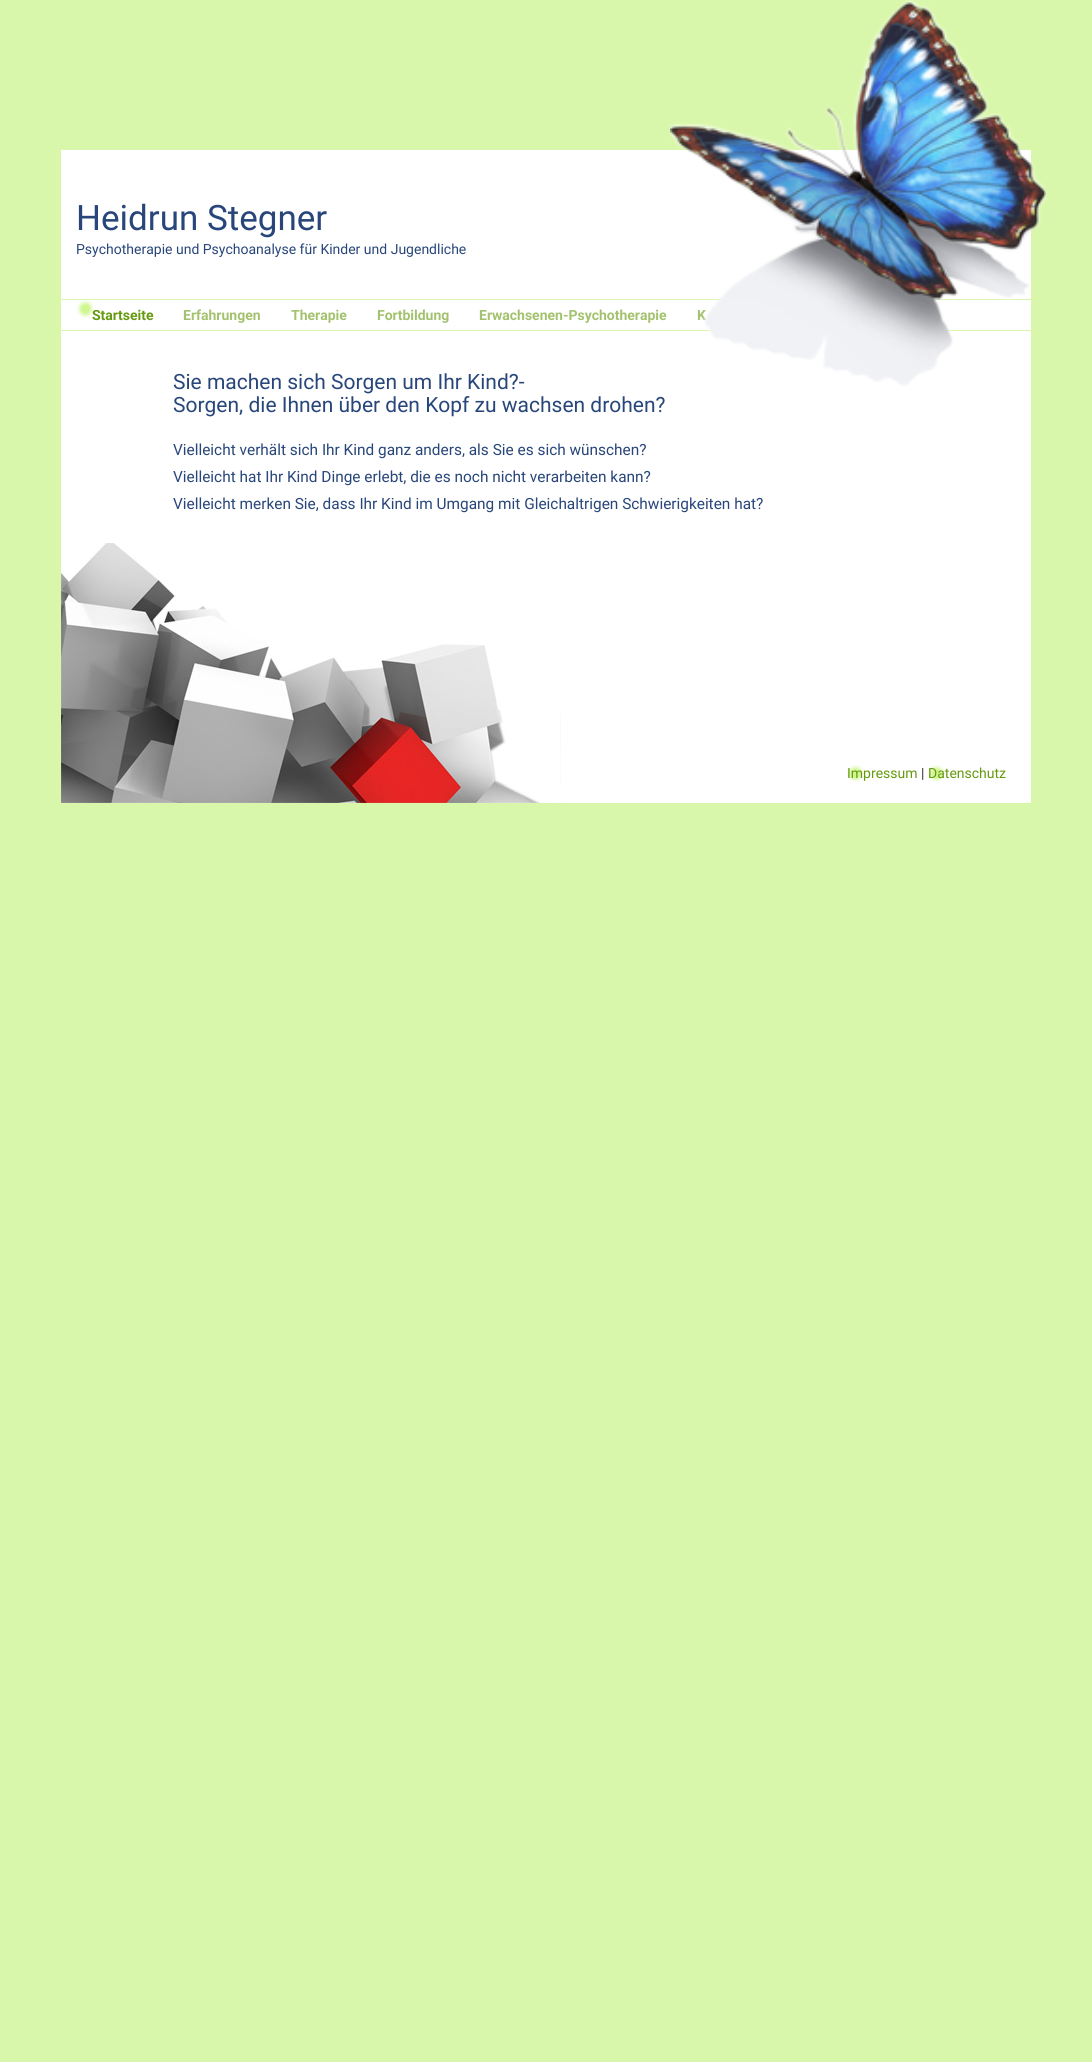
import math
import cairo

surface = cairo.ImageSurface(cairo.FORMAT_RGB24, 1092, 2062)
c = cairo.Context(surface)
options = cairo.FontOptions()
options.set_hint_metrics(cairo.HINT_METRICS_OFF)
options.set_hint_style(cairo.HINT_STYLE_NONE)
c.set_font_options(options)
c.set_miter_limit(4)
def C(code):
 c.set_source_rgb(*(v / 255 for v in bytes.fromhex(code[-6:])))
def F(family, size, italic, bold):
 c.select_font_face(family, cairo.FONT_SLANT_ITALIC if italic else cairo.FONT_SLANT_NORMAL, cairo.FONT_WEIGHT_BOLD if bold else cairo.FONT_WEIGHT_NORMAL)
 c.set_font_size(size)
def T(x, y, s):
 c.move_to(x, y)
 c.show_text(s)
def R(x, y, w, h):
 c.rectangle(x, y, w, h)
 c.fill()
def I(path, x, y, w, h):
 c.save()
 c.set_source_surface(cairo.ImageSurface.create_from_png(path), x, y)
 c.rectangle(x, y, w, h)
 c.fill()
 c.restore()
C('d9f7aa')
c.paint()
C('ffffff')
R(61,150,970,653)
F('Roboto',35,0,0)
C('28467a')
T(76,230,'Heidrun Stegner')
c.new_path()
c.move_to(47.5,300.5)
c.line_to(50,299.5)
c.line_to(1042,299.5)
c.line_to(1044.5,300.5)
C('d9f7aa')
c.set_line_width(1)
c.stroke()
c.new_path()
c.move_to(1044.5,329.5)
c.line_to(1042,330.5)
c.line_to(50,330.5)
c.line_to(47.5,329.5)
c.stroke()
F('Roboto',14,0,1)
C('a3c26e')
T(697,320,'K')
I('1.png',670,0,376,386)
F('Roboto',14,0,0)
C('28467a')
T(76,254,'Psychotherapie und Psychoanalyse für Kinder und Jugendliche')
I('2.png',77,300,18,19)
F('Roboto',14,0,1)
C('659a0e')
T(92,320,'Startseite')
C('a3c26e')
T(183,320,'Erfahrungen')
T(291,320,'Therapie')
T(377,320,'Fortbildung')
T(479,320,'Erwachsenen-Psychotherapie')
F('Roboto',21,0,0)
C('28467a')
T(173,389,'Sie machen sich Sorgen um Ihr Kind?-')
T(173,412,'Sorgen, die Ihnen über den Kopf zu wachsen drohen?')
F('Roboto',15.4,0,0)
T(173,455,'Vielleicht verhält sich Ihr Kind ganz anders, als Sie es sich wünschen?')
T(173,482,'Vielleicht hat Ihr Kind Dinge erlebt, die es noch nicht verarbeiten kann?')
T(173,509,'Vielleicht merken Sie, dass Ihr Kind im Umgang mit Gleichaltrigen Schwierigkeiten hat?')
I('3.png',61,543,500,260)
I('4.png',847,765,18,16)
I('4.png',928,765,18,16)
F('Roboto',14,0,0)
C('659a0e')
T(847,778,'Impressum')
C('333333')
T(921,778,'|')
C('659a0e')
T(928,778,'Datenschutz')
surface.write_to_png('o.png')
